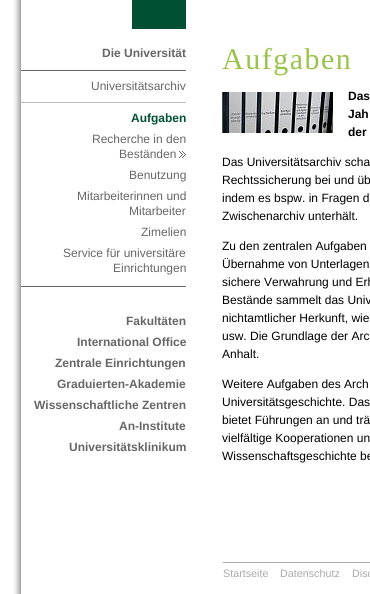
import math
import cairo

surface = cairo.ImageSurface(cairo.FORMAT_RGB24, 370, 594)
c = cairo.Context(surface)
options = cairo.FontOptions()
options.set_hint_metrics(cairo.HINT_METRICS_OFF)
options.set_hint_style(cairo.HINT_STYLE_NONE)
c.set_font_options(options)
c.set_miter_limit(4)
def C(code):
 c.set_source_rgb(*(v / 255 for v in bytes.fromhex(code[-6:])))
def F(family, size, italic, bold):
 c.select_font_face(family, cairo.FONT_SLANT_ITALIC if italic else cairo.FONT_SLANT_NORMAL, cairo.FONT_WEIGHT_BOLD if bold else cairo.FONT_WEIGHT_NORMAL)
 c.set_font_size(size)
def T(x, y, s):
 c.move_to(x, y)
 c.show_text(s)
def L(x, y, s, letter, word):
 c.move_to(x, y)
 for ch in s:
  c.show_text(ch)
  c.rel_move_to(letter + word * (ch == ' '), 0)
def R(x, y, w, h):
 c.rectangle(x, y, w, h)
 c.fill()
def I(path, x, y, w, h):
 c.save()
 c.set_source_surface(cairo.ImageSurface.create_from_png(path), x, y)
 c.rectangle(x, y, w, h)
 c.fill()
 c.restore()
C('ffffff')
c.paint()
I('1.png',13,0,8,29)
C('005133')
R(132,0,54,29)
I('2.png',13,29,8,565)
F('Liberation Sans',12,0,1)
C('666666')
T(102,57,'Die Universität')
R(21,70,165,1)
R(21,286,165,1)
F('Liberation Sans',12,0,0)
T(91,90,'Universitätsarchiv')
C('bbbbbb')
R(21,102,165,1)
F('Liberation Sans',12,0,1)
C('005133')
T(131,122,'Aufgaben')
I('3.png',179,151,7,7)
F('Liberation Sans',12,0,0)
C('666666')
T(92,143,'Recherche in den')
T(119,158,'Beständen')
T(129,179,'Benutzung')
T(77,200,'Mitarbeiterinnen und')
T(129,215,'Mitarbeiter')
T(141,236,'Zimelien')
T(63,257,'Service für universitäre')
T(113,272,'Einrichtungen')
F('Liberation Sans',12,0,1)
T(126,325,'Fakultäten')
T(77,346,'International Office')
T(55,367,'Zentrale Einrichtungen')
T(57,388,'Graduierten-Akademie')
T(34,409,'Wissenschaftliche Zentren')
T(119,430,'An-Institute')
T(69,451,'Universitätsklinikum')
F('Liberation Serif',30,0,0)
C('9bc34b')
L(222,69,'Aufgaben',1.5,0)
I('4.png',222,92,111,41)
F('Liberation Sans',12,0,1)
C('000000')
T(348,100,'Das')
T(348,118,'Jah')
T(348,136,'der')
F('Liberation Sans',12,0,0)
T(222,166,'Das Universitätsarchiv scha')
T(222,184,'Rechtssicherung bei und üb')
T(222,202,'indem es bspw. in Fragen d')
T(222,220,'Zwischenarchiv unterhält.')
T(222,250,'Zu den zentralen Aufgaben')
T(222,268,'Übernahme von Unterlagen')
T(222,286,'sichere Verwahrung und Erh')
T(222,304,'Bestände sammelt das Univ')
T(222,322,'nichtamtlicher Herkunft, wie')
T(222,340,'usw. Die Grundlage der Arc')
T(222,358,'Anhalt.')
T(222,388,'Weitere Aufgaben des Arch')
T(222,406,'Universitätsgeschichte. Das')
T(222,424,'bietet Führungen an und trä')
T(222,442,'vielfältige Kooperationen un')
T(222,460,'Wissenschaftsgeschichte be')
C('aaaaaa')
R(223,562,147,1)
F('Liberation Sans',10.75,0,0)
T(223,577,'Startseite')
T(280,577,'Datenschutz')
T(352,577,'Disc')
surface.write_to_png('o.png')
